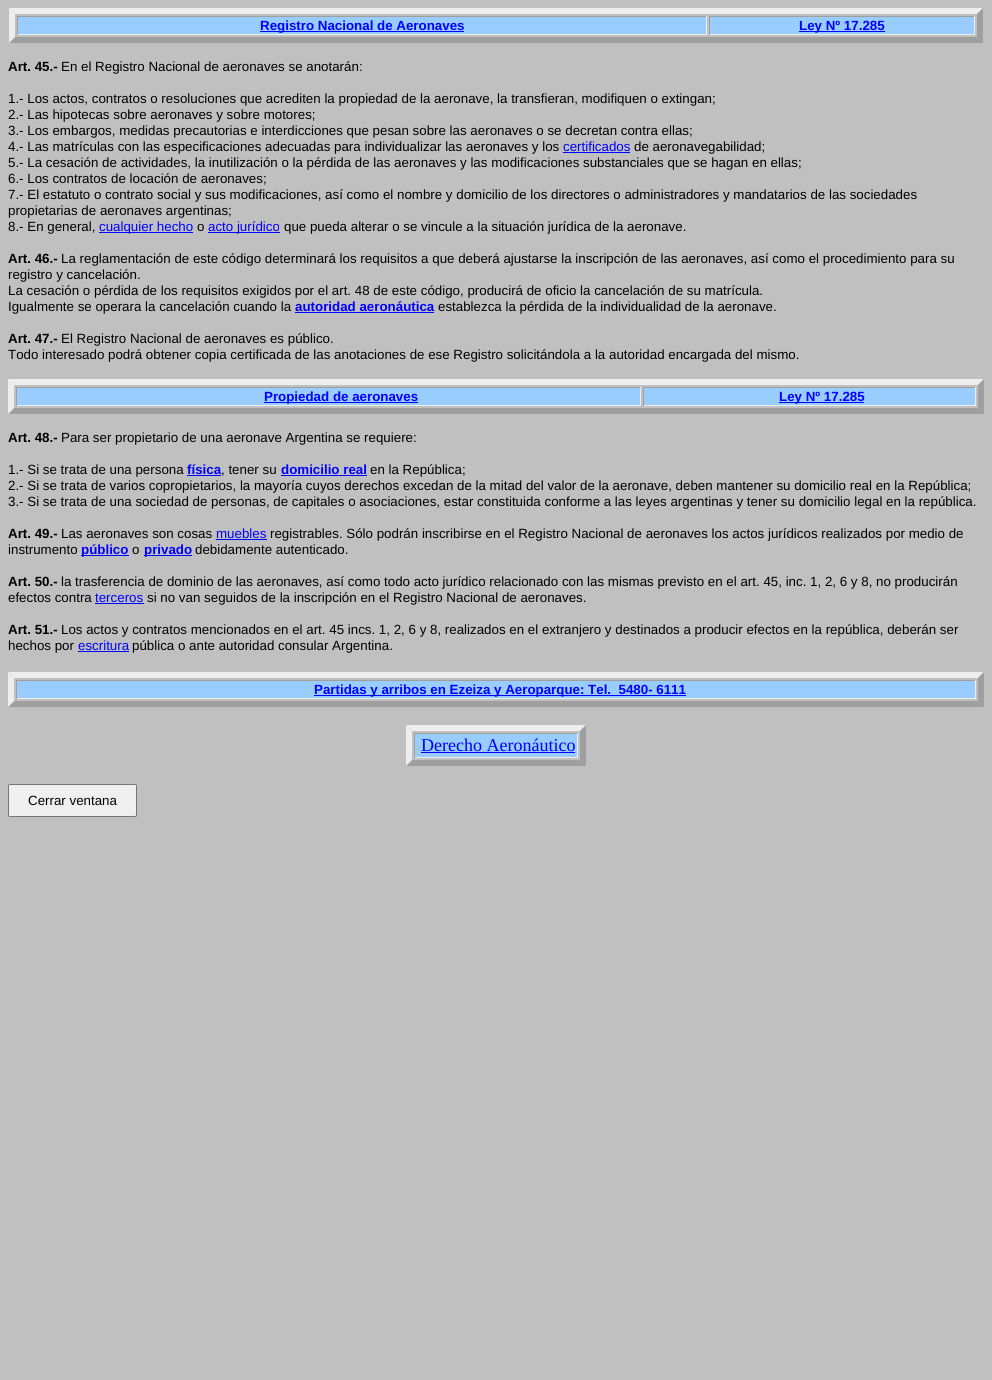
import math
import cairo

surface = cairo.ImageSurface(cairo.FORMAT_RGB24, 992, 1380)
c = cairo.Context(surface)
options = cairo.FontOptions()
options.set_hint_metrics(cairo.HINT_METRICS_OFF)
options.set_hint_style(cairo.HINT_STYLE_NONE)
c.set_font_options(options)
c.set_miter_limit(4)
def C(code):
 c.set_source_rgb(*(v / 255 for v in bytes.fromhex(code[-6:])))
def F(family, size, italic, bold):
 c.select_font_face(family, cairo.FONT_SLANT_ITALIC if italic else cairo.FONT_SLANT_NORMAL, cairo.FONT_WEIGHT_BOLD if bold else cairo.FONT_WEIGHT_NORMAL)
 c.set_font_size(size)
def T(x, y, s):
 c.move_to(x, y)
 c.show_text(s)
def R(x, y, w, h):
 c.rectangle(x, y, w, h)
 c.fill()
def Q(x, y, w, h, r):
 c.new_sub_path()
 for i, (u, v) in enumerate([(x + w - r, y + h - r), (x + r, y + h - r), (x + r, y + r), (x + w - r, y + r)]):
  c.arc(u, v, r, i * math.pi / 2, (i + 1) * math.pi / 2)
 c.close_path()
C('c0c0c0')
c.paint()
C('eeeeee')
c.new_path()
c.move_to(9,8)
c.line_to(983,8)
c.line_to(977,14)
c.line_to(15,14)
c.close_path()
c.fill()
C('9f9f9f')
c.new_path()
c.move_to(983,8)
c.line_to(983,43)
c.line_to(977,37)
c.line_to(977,14)
c.close_path()
c.fill()
c.new_path()
c.move_to(983,43)
c.line_to(9,43)
c.line_to(15,37)
c.line_to(977,37)
c.close_path()
c.fill()
C('eeeeee')
c.new_path()
c.move_to(9,43)
c.line_to(9,8)
c.line_to(15,14)
c.line_to(15,37)
c.close_path()
c.fill()
C('99ccff')
R(18,17,688,17)
C('9f9f9f')
R(17,16,690,1)
C('eeeeee')
R(706,16,1,19)
R(17,34,690,1)
C('9f9f9f')
R(17,16,1,19)
C('0000ff')
R(260,31,204,1)
F('Liberation Sans',13.33,0,1)
T(260,30,'Registro Nacional de Aeronaves')
C('99ccff')
R(710,17,264,17)
C('9f9f9f')
R(709,16,266,1)
C('eeeeee')
R(974,16,1,19)
R(709,34,266,1)
C('9f9f9f')
R(709,16,1,19)
C('0000ff')
R(799,31,86,1)
T(799,30,'Ley Nº 17.285')
C('000000')
T(8,71,'Art. 45.-')
F('Liberation Sans',13.33,0,0)
T(61,71,'En el Registro Nacional de aeronaves se anotarán:')
T(8,103,'1.- Los actos, contratos o resoluciones que acrediten la propiedad de la aeronave, la transfieran, modifiquen o extingan;')
T(8,119,'2.- Las hipotecas sobre aeronaves y sobre motores;')
T(8,135,'3.- Los embargos, medidas precautorias e interdicciones que pesan sobre las aeronaves o se decretan contra ellas;')
T(8,151,'4.- Las matrículas con las especificaciones adecuadas para individualizar las aeronaves y los')
C('0000ff')
T(563,151,'certificados')
R(563,152,67,1)
C('000000')
T(634,151,'de aeronavegabilidad;')
T(8,167,'5.- La cesación de actividades, la inutilización o la pérdida de las aeronaves y las modificaciones substanciales que se hagan en ellas;')
T(8,183,'6.- Los contratos de locación de aeronaves;')
T(8,199,'7.- El estatuto o contrato social y sus modificaciones, así como el nombre y domicilio de los directores o administradores y mandatarios de las sociedades')
T(8,215,'propietarias de aeronaves argentinas;')
T(8,231,'8.- En general,')
C('0000ff')
R(99,232,94,1)
T(99,231,'cualquier hecho')
C('000000')
T(197,231,'o')
C('0000ff')
R(208,232,72,1)
T(208,231,'acto jurídico')
C('000000')
T(284,231,'que pueda alterar o se vincule a la situación jurídica de la aeronave.')
F('Liberation Sans',13.33,0,1)
T(8,263,'Art. 46.-')
F('Liberation Sans',13.33,0,0)
T(61,263,'La reglamentación de este código determinará los requisitos a que deberá ajustarse la inscripción de las aeronaves, así como el procedimiento para su')
T(8,279,'registro y cancelación.')
T(8,295,'La cesación o pérdida de los requisitos exigidos por el art. 48 de este código, producirá de oficio la cancelación de su matrícula.')
T(8,311,'Igualmente se operara la cancelación cuando la')
F('Liberation Sans',13.33,0,1)
C('0000ff')
T(295,311,'autoridad aeronáutica')
R(295,312,139,1)
F('Liberation Sans',13.33,0,0)
C('000000')
T(438,311,'establezca la pérdida de la individualidad de la aeronave.')
F('Liberation Sans',13.33,0,1)
T(8,343,'Art. 47.-')
F('Liberation Sans',13.33,0,0)
T(61,343,'El Registro Nacional de aeronaves es público.')
T(8,359,'Todo interesado podrá obtener copia certificada de las anotaciones de ese Registro solicitándola a la autoridad encargada del mismo.')
C('eeeeee')
c.new_path()
c.move_to(8,379)
c.line_to(984,379)
c.line_to(978,385)
c.line_to(14,385)
c.close_path()
c.fill()
C('9f9f9f')
c.new_path()
c.move_to(984,379)
c.line_to(984,414)
c.line_to(978,408)
c.line_to(978,385)
c.close_path()
c.fill()
c.new_path()
c.move_to(984,414)
c.line_to(8,414)
c.line_to(14,408)
c.line_to(978,408)
c.close_path()
c.fill()
C('eeeeee')
c.new_path()
c.move_to(8,414)
c.line_to(8,379)
c.line_to(14,385)
c.line_to(14,408)
c.close_path()
c.fill()
C('99ccff')
R(17,388,623,17)
C('9f9f9f')
R(16,387,625,1)
C('eeeeee')
R(640,387,1,19)
R(16,405,625,1)
C('9f9f9f')
R(16,387,1,19)
C('0000ff')
R(264,402,154,1)
F('Liberation Sans',13.33,0,1)
T(264,401,'Propiedad de aeronaves')
C('99ccff')
R(644,388,331,17)
C('9f9f9f')
R(643,387,333,1)
C('eeeeee')
R(975,387,1,19)
R(643,405,333,1)
C('9f9f9f')
R(643,387,1,19)
C('0000ff')
R(779,402,85,1)
T(779,401,'Ley Nº 17.285')
C('000000')
T(8,442,'Art. 48.-')
F('Liberation Sans',13.33,0,0)
T(61,442,'Para ser propietario de una aeronave Argentina se requiere:')
T(8,474,'1.- Si se trata de una persona')
F('Liberation Sans',13.33,0,1)
C('0000ff')
T(187,474,'física')
F('Liberation Sans',13.33,0,0)
C('000000')
T(221,474,', tener su')
C('0000ff')
R(187,475,34,1)
F('Liberation Sans',13.33,0,1)
T(281,474,'domicilio real')
R(281,475,86,1)
F('Liberation Sans',13.33,0,0)
C('000000')
T(370,474,'en la República;')
T(8,490,'2.- Si se trata de varios copropietarios, la mayoría cuyos derechos excedan de la mitad del valor de la aeronave, deben mantener su domicilio real en la República;')
T(8,506,'3.- Si se trata de una sociedad de personas, de capitales o asociaciones, estar constituida conforme a las leyes argentinas y tener su domicilio legal en la república.')
F('Liberation Sans',13.33,0,1)
T(8,538,'Art. 49.-')
F('Liberation Sans',13.33,0,0)
T(61,538,'Las aeronaves son cosas')
C('0000ff')
T(216,538,'muebles')
R(216,539,51,1)
C('000000')
T(270,538,'registrables. Sólo podrán inscribirse en el Registro Nacional de aeronaves los actos jurídicos realizados por medio de')
T(8,554,'instrumento')
C('0000ff')
R(81,555,48,1)
F('Liberation Sans',13.33,0,1)
T(81,554,'público')
F('Liberation Sans',13.33,0,0)
C('000000')
T(132,554,'o')
C('0000ff')
R(144,555,48,1)
F('Liberation Sans',13.33,0,1)
T(144,554,'privado')
F('Liberation Sans',13.33,0,0)
C('000000')
T(195,554,'debidamente autenticado.')
F('Liberation Sans',13.33,0,1)
T(8,586,'Art. 50.-')
F('Liberation Sans',13.33,0,0)
T(61,586,'la trasferencia de dominio de las aeronaves, así como todo acto jurídico relacionado con las mismas previsto en el art. 45, inc. 1, 2, 6 y 8, no producirán')
T(8,602,'efectos contra')
C('0000ff')
T(95,602,'terceros')
R(95,603,49,1)
C('000000')
T(147,602,'si no van seguidos de la inscripción en el Registro Nacional de aeronaves.')
F('Liberation Sans',13.33,0,1)
T(8,634,'Art. 51.-')
F('Liberation Sans',13.33,0,0)
T(61,634,'Los actos y contratos mencionados en el art. 45 incs. 1, 2, 6 y 8, realizados en el extranjero y destinados a producir efectos en la república, deberán ser')
T(8,650,'hechos por')
C('0000ff')
T(78,650,'escritura')
R(78,651,51,1)
C('000000')
T(132,650,'pública o ante autoridad consular Argentina.')
C('eeeeee')
c.new_path()
c.move_to(8,672)
c.line_to(984,672)
c.line_to(978,678)
c.line_to(14,678)
c.close_path()
c.fill()
C('9f9f9f')
c.new_path()
c.move_to(984,672)
c.line_to(984,707)
c.line_to(978,701)
c.line_to(978,678)
c.close_path()
c.fill()
c.new_path()
c.move_to(984,707)
c.line_to(8,707)
c.line_to(14,701)
c.line_to(978,701)
c.close_path()
c.fill()
C('eeeeee')
c.new_path()
c.move_to(8,707)
c.line_to(8,672)
c.line_to(14,678)
c.line_to(14,701)
c.close_path()
c.fill()
C('99ccff')
R(17,681,958,17)
C('9f9f9f')
R(16,680,960,1)
C('eeeeee')
R(975,680,1,19)
R(16,698,960,1)
C('9f9f9f')
R(16,680,1,19)
C('0000ff')
R(314,695,372,1)
F('Liberation Sans',13.33,0,1)
T(314,694,'Partidas y arribos en Ezeiza y Aeroparque: Tel.  5480- 6111')
C('eeeeee')
c.new_path()
c.move_to(406,725)
c.line_to(586,725)
c.line_to(580,731)
c.line_to(412,731)
c.close_path()
c.fill()
C('9f9f9f')
c.new_path()
c.move_to(586,725)
c.line_to(586,766)
c.line_to(580,760)
c.line_to(580,731)
c.close_path()
c.fill()
c.new_path()
c.move_to(586,766)
c.line_to(406,766)
c.line_to(412,760)
c.line_to(580,760)
c.close_path()
c.fill()
C('eeeeee')
c.new_path()
c.move_to(406,766)
c.line_to(406,725)
c.line_to(412,731)
c.line_to(412,760)
c.close_path()
c.fill()
C('99ccff')
R(415,734,162,23)
C('9f9f9f')
R(414,733,164,1)
C('eeeeee')
R(577,733,1,25)
R(414,757,164,1)
C('9f9f9f')
R(414,733,1,25)
F('Liberation Serif',18,0,0)
C('0000ff')
T(421,751,'Derecho Aeronáutico')
R(421,752,154,1)
C('efefef')
Q(8.5,784.5,128,32,1.5)
c.fill_preserve()
C('767676')
c.set_line_width(1)
c.stroke()
F('Liberation Sans',13.33,0,0)
C('000000')
T(28,805,'Cerrar ventana')
surface.write_to_png('o.png')
